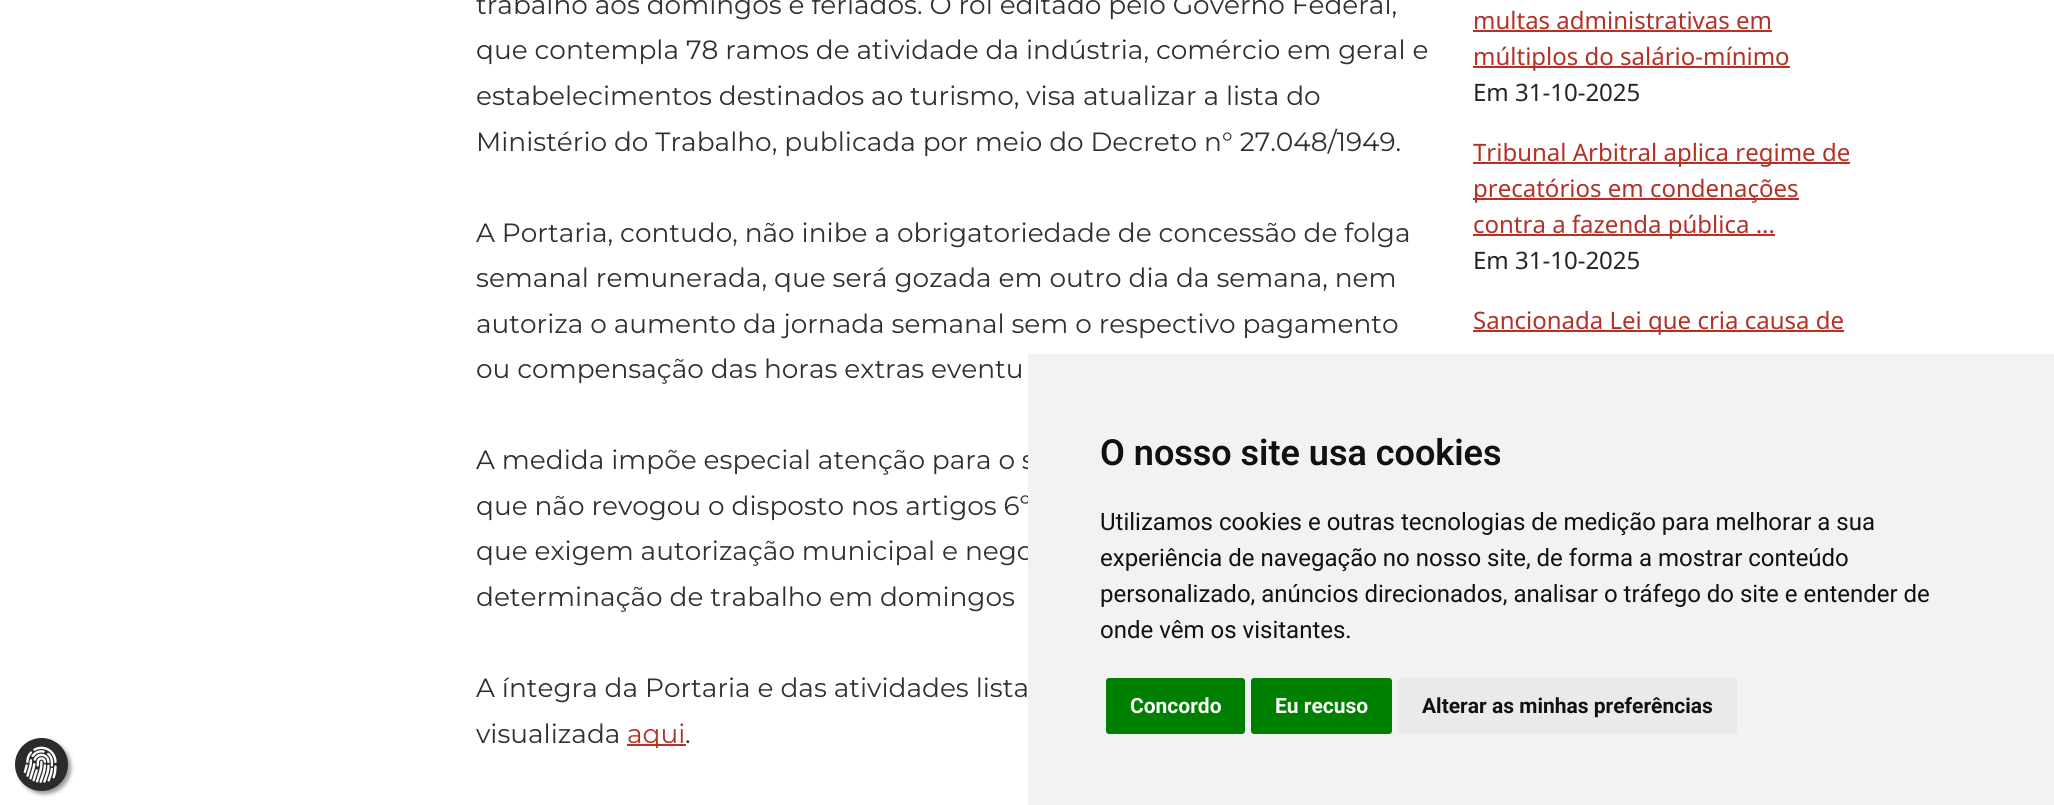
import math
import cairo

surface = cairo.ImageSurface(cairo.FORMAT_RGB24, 2054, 805)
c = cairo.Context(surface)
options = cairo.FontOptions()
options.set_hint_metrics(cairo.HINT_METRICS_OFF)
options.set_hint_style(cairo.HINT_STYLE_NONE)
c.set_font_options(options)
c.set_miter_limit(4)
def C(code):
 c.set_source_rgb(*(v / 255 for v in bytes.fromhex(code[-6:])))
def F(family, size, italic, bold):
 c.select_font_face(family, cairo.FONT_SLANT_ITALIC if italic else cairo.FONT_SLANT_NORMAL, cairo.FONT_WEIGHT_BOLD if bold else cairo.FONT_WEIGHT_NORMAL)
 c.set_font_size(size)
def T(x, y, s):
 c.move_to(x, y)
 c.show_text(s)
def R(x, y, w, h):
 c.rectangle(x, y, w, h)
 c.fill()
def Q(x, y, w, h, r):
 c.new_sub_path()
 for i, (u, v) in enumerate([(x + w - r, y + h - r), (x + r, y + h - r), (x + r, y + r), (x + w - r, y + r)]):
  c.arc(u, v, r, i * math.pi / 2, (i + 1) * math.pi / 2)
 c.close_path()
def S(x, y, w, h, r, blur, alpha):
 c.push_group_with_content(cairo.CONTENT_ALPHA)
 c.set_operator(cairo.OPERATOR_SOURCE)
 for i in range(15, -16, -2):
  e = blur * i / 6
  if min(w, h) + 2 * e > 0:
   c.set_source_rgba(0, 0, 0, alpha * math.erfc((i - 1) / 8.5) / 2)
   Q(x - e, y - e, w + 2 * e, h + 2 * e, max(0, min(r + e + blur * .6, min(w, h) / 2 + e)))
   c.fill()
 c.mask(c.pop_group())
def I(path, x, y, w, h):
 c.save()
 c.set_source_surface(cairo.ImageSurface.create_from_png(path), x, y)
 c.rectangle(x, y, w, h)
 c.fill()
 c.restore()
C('ffffff')
c.paint()
F('Montserrat Thin',26.4,0,0)
C('303030')
T(476,14,'trabalho aos domingos e feriados. O rol editado pelo Governo Federal,')
T(476,59,'que contempla 78 ramos de atividade da indústria, comércio em geral e')
T(476,105,'estabelecimentos destinados ao turismo, visa atualizar a lista do')
T(476,151,'Ministério do Trabalho, publicada por meio do Decreto n° 27.048/1949.')
T(476,242,'A Portaria, contudo, não inibe a obrigatoriedade de concessão de folga')
T(476,287,'semanal remunerada, que será gozada em outro dia da semana, nem')
T(476,333,'autoriza o aumento da jornada semanal sem o respectivo pagamento')
T(476,378,'ou compensação das horas extras eventu')
T(476,469,'A medida impõe especial atenção para o s')
T(476,515,'que não revogou o disposto nos artigos 6º')
T(476,560,'que exigem autorização municipal e nego')
T(476,606,'determinação de trabalho em domingos')
T(476,697,'A íntegra da Portaria e das atividades lista')
T(476,743,'visualizada')
C('b33126')
R(627,744,59,2)
T(627,743,'aqui')
C('303030')
T(685,743,'.')
F('Noto Sans',24,0,0)
C('b33126')
T(1473,29,'multas administrativas em')
R(1473,30,299,2)
R(1473,66,317,2)
T(1473,65,'múltiplos do salário-mínimo')
C('212529')
T(1473,101,'Em 31-10-2025')
C('b33126')
R(1473,162,377,2)
T(1473,161,'Tribunal Arbitral aplica regime de')
R(1473,198,326,2)
T(1473,197,'precatórios em condenações')
R(1473,234,302,2)
T(1473,233,'contra a fazenda pública ...')
C('212529')
T(1473,269,'Em 31-10-2025')
C('b33126')
R(1473,330,371,2)
T(1473,329,'Sancionada Lei que cria causa de')
C('f2f2f2')
R(1028,354,1026,451)
F('Roboto SemiBold',36,0,0)
C('111111')
T(1100,465,'O nosso site usa cookies')
F('Roboto',24,0,0)
T(1100,530,'Utilizamos cookies e outras tecnologias de medição para melhorar a sua')
T(1100,566,'experiência de navegação no nosso site, de forma a mostrar conteúdo')
T(1100,602,'personalizado, anúncios direcionados, analisar o tráfego do site e entender de')
T(1100,638,'onde vêm os visitantes.')
C('008000')
Q(1106,678,139,56,3)
c.fill()
F('Roboto',21,0,1)
C('ffffff')
T(1130,713,'Concordo')
C('008000')
Q(1251,678,141,56,3)
c.fill()
C('ffffff')
T(1275,713,'Eu recuso')
C('eaeaea')
Q(1398,678,339,56,3)
c.fill()
C('111111')
T(1422,713,'Alterar as minhas preferências')
C('999999')
S(18,741,53,53,26.5,2,1)
C('2b2b2b')
c.arc(41.5,764.5,26.5,0,2 * math.pi)
c.fill()
I('1.png',23,746,34,37)
surface.write_to_png('o.png')
